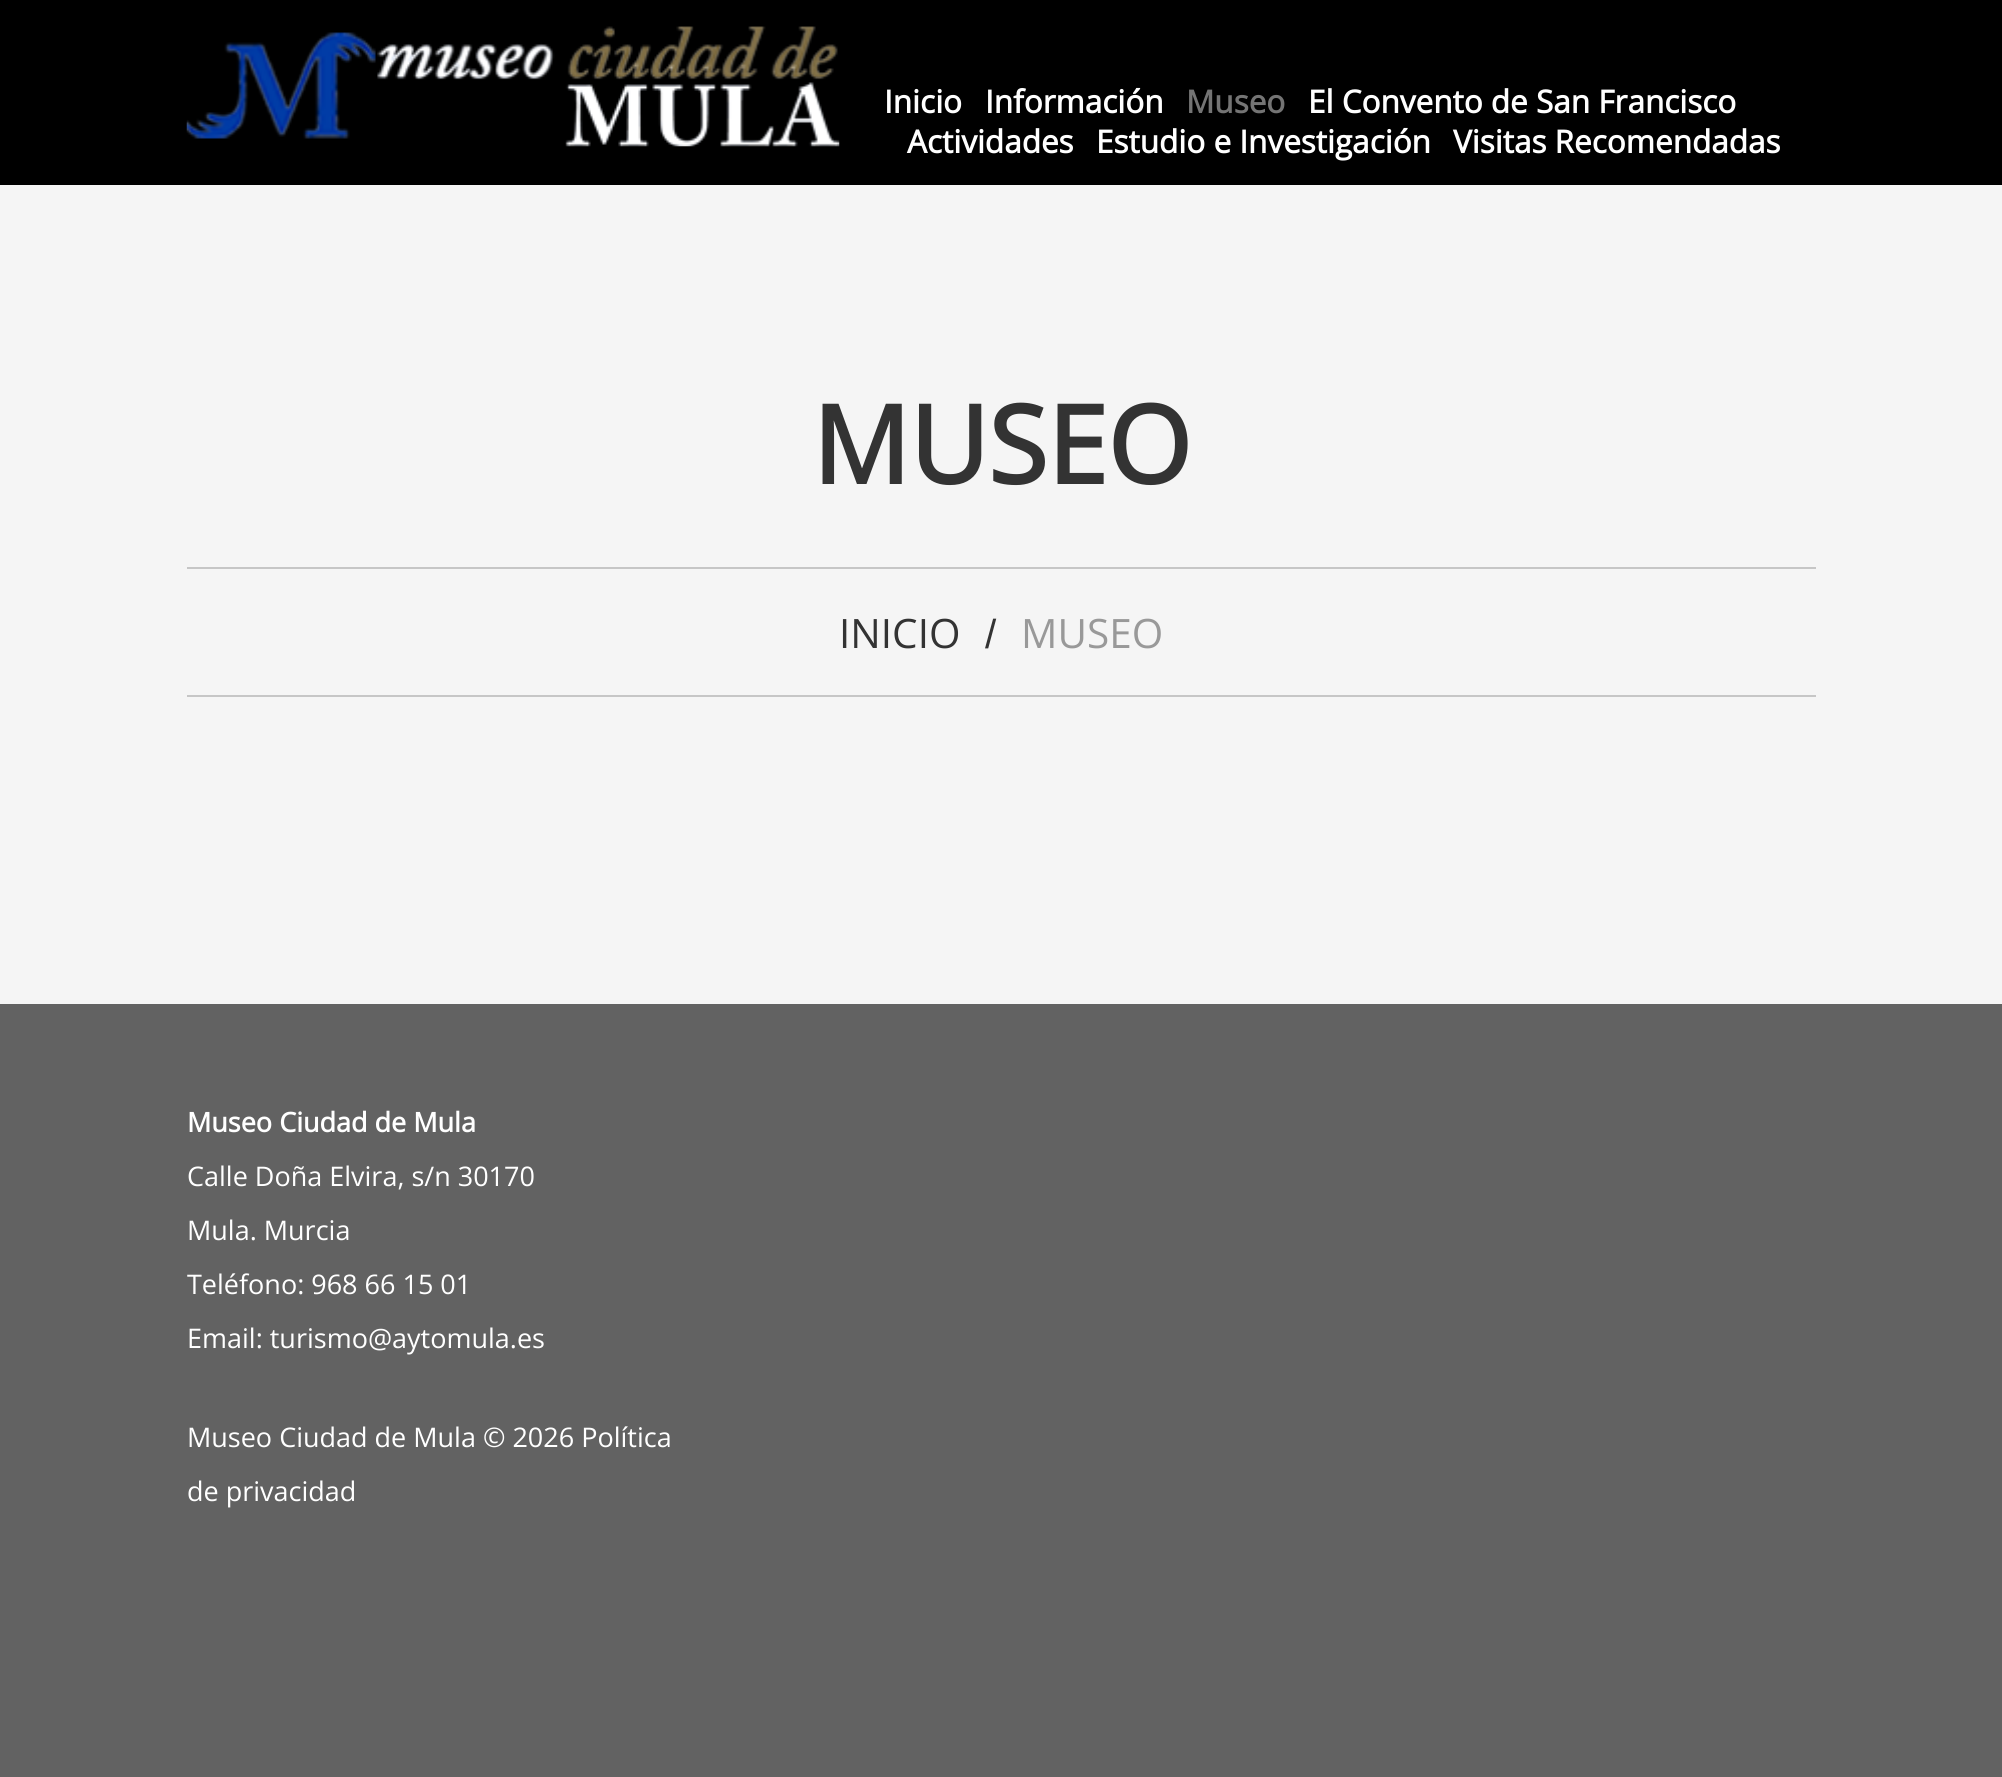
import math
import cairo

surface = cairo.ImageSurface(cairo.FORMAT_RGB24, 2002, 1777)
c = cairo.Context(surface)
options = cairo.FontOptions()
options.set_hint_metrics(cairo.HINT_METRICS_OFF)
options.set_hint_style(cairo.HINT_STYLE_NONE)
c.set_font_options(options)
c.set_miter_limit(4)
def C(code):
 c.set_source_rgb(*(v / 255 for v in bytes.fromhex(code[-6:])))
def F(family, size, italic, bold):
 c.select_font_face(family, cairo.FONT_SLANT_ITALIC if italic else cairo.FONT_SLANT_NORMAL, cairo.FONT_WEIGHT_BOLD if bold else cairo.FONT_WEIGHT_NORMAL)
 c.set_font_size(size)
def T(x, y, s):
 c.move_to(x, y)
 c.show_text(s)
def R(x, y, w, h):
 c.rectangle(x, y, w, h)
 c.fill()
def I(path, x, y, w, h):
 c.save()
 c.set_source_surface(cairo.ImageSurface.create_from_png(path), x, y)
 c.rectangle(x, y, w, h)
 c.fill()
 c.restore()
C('626262')
c.paint()
C('f5f5f5')
R(0,185,2002,819)
C('000000')
R(0,0,2002,185)
I('1.png',186,26,654,121)
F('Open Sans',31.5,0,1)
C('ffffff')
T(884,113,'Inicio')
T(985,113,'Información')
C('747474')
T(1186,113,'Museo')
C('ffffff')
T(1308,113,'El Convento de San Francisco')
T(907,153,'Actividades')
T(1096,153,'Estudio e Investigación')
T(1453,153,'Visitas Recomendadas')
F('Open Sans',108,0,1)
C('333333')
T(812,484,'MUSEO')
C('c6c6c6')
R(187,567,1629,2)
R(187,695,1629,2)
F('Open Sans',40.5,0,0)
C('333333')
T(839,648,'INICIO')
F('Liberation Sans',40.5,0,0)
T(985,648,'/')
F('Open Sans',40.5,0,0)
C('999999')
T(1021,648,'MUSEO')
F('Open Sans',27,0,1)
C('ffffff')
T(187,1132,'Museo Ciudad de Mula')
F('Open Sans',27,0,0)
T(187,1186,'Calle Doña Elvira, s/n 30170')
T(187,1240,'Mula. Murcia')
T(187,1294,'Teléfono: 968 66 15 01')
T(187,1348,'Email: turismo@aytomula.es')
T(187,1447,'Museo Ciudad de Mula © 2026 Política')
T(187,1501,'de privacidad')
surface.write_to_png('o.png')
